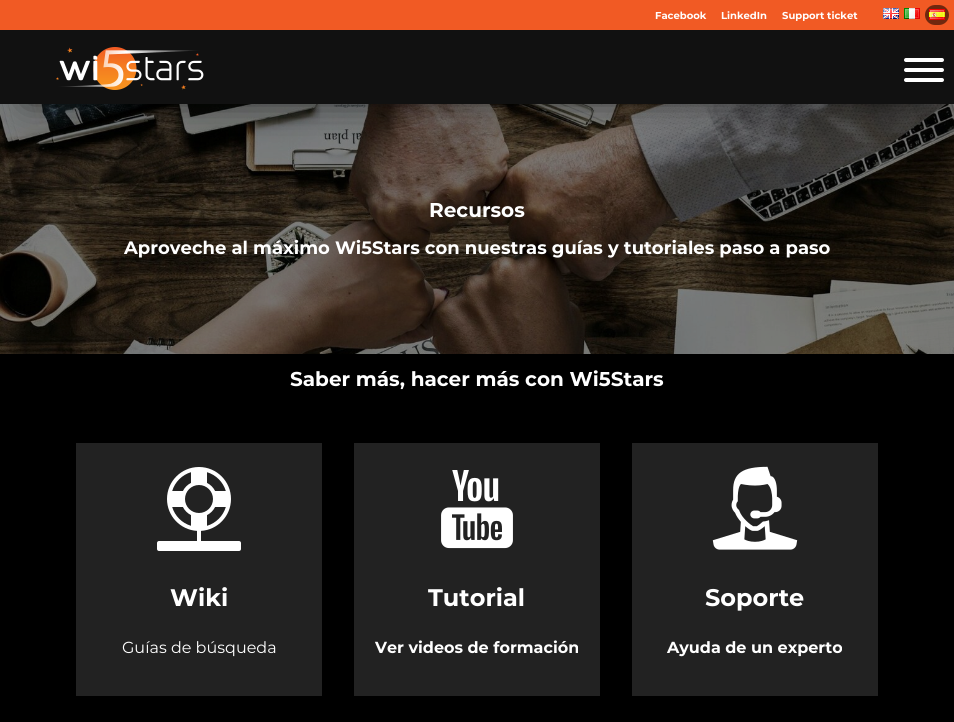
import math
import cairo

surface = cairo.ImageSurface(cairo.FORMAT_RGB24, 954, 722)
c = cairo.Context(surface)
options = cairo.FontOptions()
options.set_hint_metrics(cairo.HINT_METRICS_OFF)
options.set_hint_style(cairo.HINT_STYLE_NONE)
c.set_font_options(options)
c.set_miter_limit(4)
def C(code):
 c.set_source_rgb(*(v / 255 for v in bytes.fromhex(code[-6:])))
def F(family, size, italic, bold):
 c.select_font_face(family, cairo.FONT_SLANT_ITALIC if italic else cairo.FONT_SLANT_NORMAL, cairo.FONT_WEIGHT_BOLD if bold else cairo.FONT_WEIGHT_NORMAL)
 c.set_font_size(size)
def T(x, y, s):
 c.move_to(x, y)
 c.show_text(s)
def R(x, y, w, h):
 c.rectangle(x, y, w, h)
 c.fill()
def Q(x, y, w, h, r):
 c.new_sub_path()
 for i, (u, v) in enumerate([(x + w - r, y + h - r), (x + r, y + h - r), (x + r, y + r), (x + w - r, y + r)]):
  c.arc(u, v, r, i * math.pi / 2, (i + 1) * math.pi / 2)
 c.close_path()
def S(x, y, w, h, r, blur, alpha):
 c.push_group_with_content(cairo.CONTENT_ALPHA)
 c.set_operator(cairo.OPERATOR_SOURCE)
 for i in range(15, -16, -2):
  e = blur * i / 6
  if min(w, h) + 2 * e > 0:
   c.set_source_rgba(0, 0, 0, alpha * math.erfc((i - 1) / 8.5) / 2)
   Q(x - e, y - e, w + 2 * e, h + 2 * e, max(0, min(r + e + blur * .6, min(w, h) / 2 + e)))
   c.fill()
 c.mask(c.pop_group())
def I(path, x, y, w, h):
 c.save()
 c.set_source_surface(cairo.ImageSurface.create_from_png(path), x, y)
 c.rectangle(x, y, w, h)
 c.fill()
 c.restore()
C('000000')
c.paint()
C('f15a24')
R(0,0,954,30)
F('Montserrat',10,0,1)
C('ffffff')
T(655,19,'Facebook')
T(721,19,'LinkedIn')
T(782,19,'Support ticket')
I('1.png',883,8,16,11)
I('2.png',904,8,16,11)
C('6f280f')
Q(925,5,24,20,10)
c.fill()
I('3.png',929,9,16,11)
I('5.png',0,104,954,250)
C('000000')
S(29,84,894,14,0,17.5,.75)
C('111111')
R(0,30,954,74)
I('4.png',56,47,148,43)
C('ffffff')
Q(904,78,40,4,2)
c.fill()
Q(904,58,40,4,2)
c.fill()
Q(904,68,40,4,2)
c.fill()
F('Montserrat',20,0,1)
T(429,217,'Recursos')
F('Montserrat',18,0,1)
T(124,254,'Aproveche al máximo Wi5Stars con nuestras guías y tutoriales paso a paso')
F('Montserrat',20,0,1)
T(290,386,'Saber más, hacer más con Wi5Stars')
C('222222')
R(76,443,246,253)
I('6.png',157,467,84,84)
F('Montserrat',24,0,1)
C('ffffff')
T(170,606,'Wiki')
F('Montserrat',16,0,0)
T(122,653,'Guías de búsqueda')
C('222222')
R(354,443,246,253)
I('7.png',441,470,72,79)
F('Montserrat',24,0,1)
C('ffffff')
T(428,606,'Tutorial')
F('Montserrat',16,0,1)
T(375,653,'Ver videos de formación')
C('222222')
R(632,443,246,253)
I('8.png',712,466,86,84)
F('Montserrat',24,0,1)
C('ffffff')
T(705,606,'Soporte')
F('Montserrat',16,0,1)
T(667,653,'Ayuda de un experto')
surface.write_to_png('o.png')
